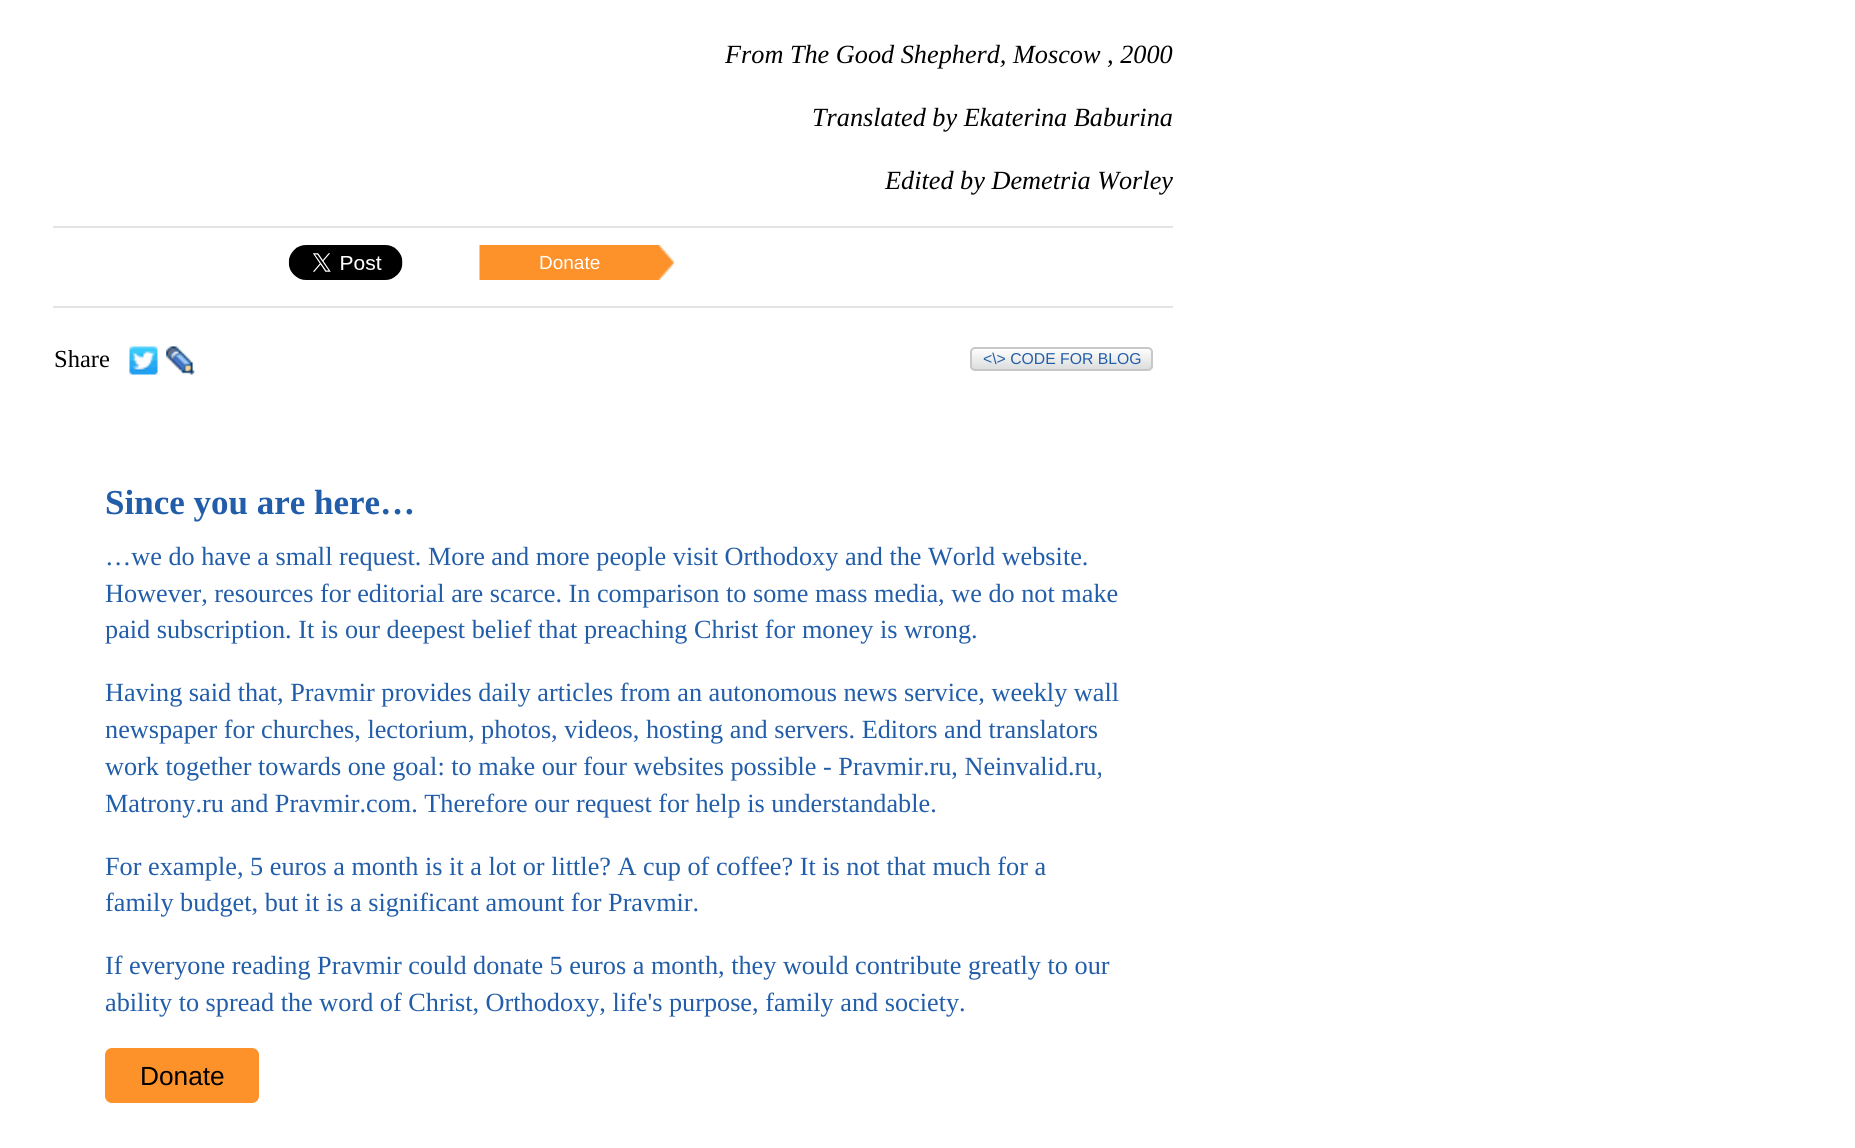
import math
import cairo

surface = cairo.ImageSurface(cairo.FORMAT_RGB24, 1855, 1148)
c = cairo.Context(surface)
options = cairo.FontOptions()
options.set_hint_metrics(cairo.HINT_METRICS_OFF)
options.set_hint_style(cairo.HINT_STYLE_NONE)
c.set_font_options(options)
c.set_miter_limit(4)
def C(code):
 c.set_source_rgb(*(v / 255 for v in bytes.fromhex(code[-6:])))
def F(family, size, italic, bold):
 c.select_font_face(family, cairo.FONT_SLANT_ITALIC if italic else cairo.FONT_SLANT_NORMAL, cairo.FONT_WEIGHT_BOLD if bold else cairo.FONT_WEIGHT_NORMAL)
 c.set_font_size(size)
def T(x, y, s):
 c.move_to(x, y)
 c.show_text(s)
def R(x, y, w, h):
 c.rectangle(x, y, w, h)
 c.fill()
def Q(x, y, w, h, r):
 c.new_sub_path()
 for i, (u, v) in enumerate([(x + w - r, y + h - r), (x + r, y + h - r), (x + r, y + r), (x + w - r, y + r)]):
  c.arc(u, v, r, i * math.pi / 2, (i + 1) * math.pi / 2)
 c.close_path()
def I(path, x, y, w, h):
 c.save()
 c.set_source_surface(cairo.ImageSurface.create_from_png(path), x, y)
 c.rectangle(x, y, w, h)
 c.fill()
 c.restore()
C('ffffff')
c.paint()
F('Liberation Serif',26.25,1,0)
C('000000')
T(725,63,'From The Good Shepherd, Moscow , 2000')
T(812,126,'Translated by Ekaterina Baburina')
T(885,189,'Edited by Demetria Worley')
C('e3e4e5')
R(53,226,1120,2)
R(53,306,1120,2)
I('1.png',288,245,115,35)
I('2.png',479,245,195,35)
F('Liberation Sans',19,0,0)
C('ffffff')
T(539,269,'Donate')
F('Liberation Serif',24.5,0,0)
C('000000')
T(54,367,'Share')
I('3.png',129,346,29,29)
I('4.png',166,346,29,29)
c.save()
Q(970,347,183,24,5)
c.clip()
gradient = cairo.LinearGradient(1061,348,1061,369)
gradient.add_color_stop_rgba(0,1,1,1,1)
gradient.add_color_stop_rgba(1,0.863,0.867,0.871,1)
c.set_source(gradient)
R(970,348,183,21)
c.restore()
Q(971,348,181,22,4)
C('c7c8ca')
c.stroke()
F('Liberation Sans',15.75,0,0)
C('225da9')
T(983,364,'<\\> CODE FOR BLOG')
F('Liberation Serif',35,0,1)
T(105,514,'Since you are here…')
F('Liberation Serif',26.25,0,0)
T(105,565,'…we do have a small request. More and more people visit Orthodoxy and the World website.')
T(105,602,'However, resources for editorial are scarce. In comparison to some mass media, we do not make')
T(105,638,'paid subscription. It is our deepest belief that preaching Christ for money is wrong.')
T(105,701,'Having said that, Pravmir provides daily articles from an autonomous news service, weekly wall')
T(105,738,'newspaper for churches, lectorium, photos, videos, hosting and servers. Editors and translators')
T(105,775,'work together towards one goal: to make our four websites possible - Pravmir.ru, Neinvalid.ru,')
T(105,812,'Matrony.ru and Pravmir.com. Therefore our request for help is understandable.')
T(105,875,'For example, 5 euros a month is it a lot or little? A cup of coffee? It is not that much for a')
T(105,911,'family budget, but it is a significant amount for Pravmir.')
T(105,974,'If everyone reading Pravmir could donate 5 euros a month, they would contribute greatly to our')
T(105,1011,'ability to spread the word of Christ, Orthodoxy, life\'s purpose, family and society.')
C('fd912a')
Q(105,1048,154,55,7)
c.fill()
F('Liberation Sans',26.25,0,0)
C('000000')
T(140,1085,'Donate')
surface.write_to_png('o.png')
